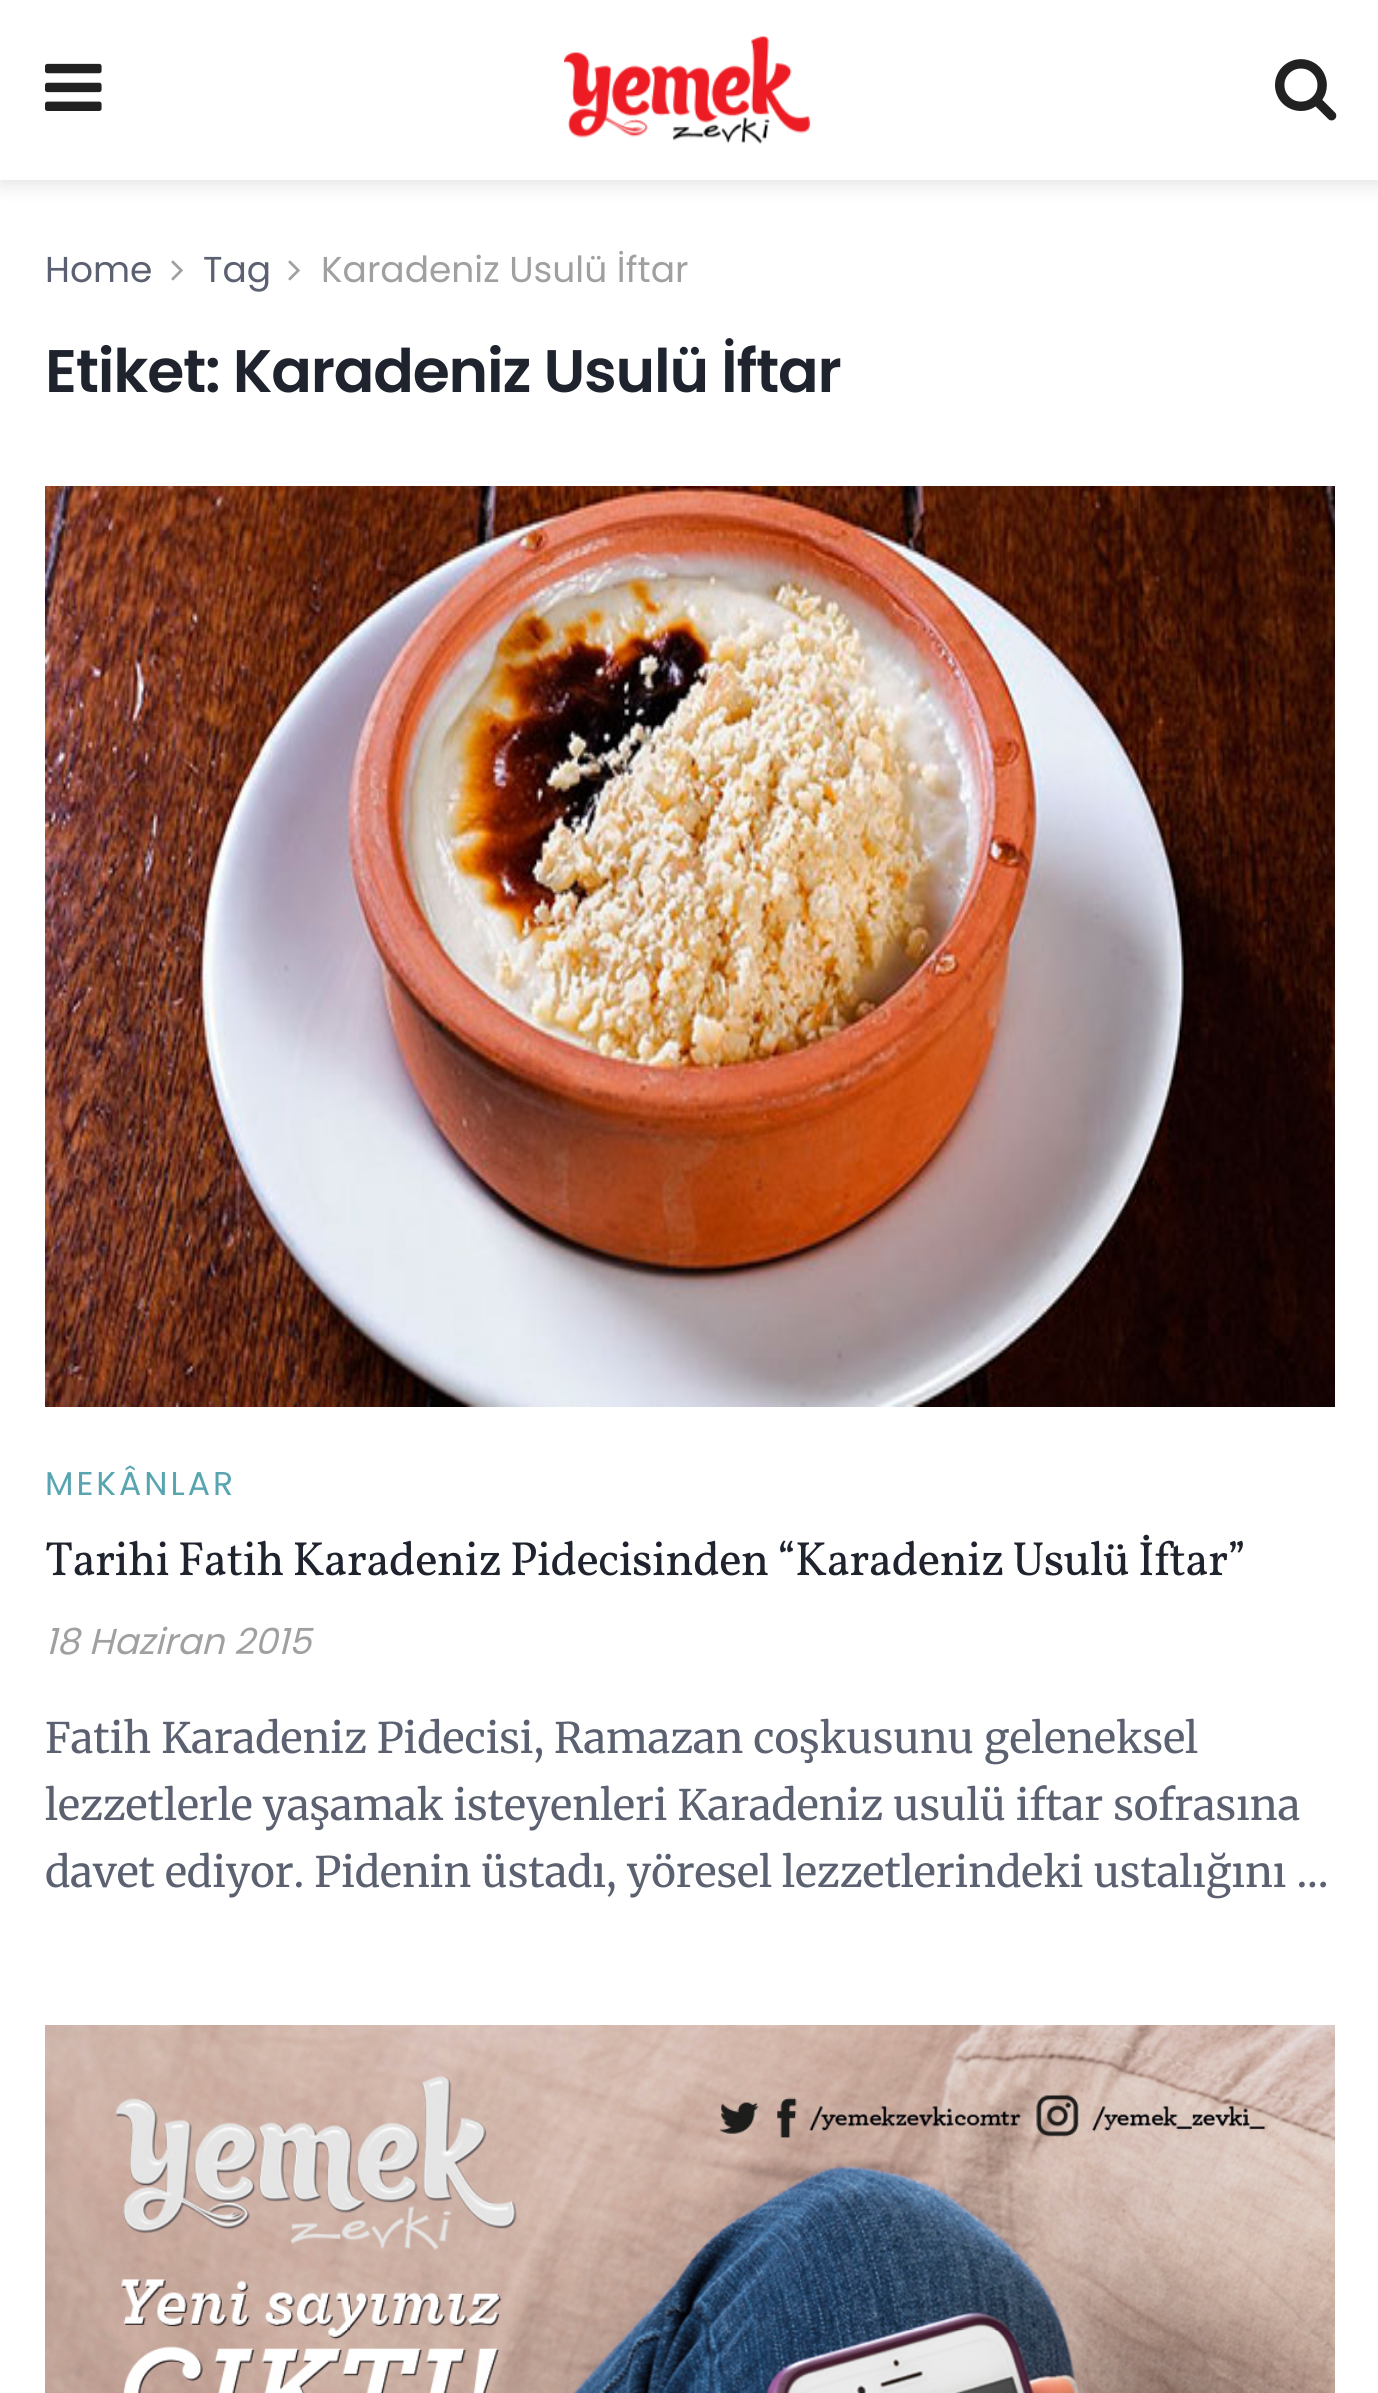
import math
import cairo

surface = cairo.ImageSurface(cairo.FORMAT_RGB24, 1378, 2393)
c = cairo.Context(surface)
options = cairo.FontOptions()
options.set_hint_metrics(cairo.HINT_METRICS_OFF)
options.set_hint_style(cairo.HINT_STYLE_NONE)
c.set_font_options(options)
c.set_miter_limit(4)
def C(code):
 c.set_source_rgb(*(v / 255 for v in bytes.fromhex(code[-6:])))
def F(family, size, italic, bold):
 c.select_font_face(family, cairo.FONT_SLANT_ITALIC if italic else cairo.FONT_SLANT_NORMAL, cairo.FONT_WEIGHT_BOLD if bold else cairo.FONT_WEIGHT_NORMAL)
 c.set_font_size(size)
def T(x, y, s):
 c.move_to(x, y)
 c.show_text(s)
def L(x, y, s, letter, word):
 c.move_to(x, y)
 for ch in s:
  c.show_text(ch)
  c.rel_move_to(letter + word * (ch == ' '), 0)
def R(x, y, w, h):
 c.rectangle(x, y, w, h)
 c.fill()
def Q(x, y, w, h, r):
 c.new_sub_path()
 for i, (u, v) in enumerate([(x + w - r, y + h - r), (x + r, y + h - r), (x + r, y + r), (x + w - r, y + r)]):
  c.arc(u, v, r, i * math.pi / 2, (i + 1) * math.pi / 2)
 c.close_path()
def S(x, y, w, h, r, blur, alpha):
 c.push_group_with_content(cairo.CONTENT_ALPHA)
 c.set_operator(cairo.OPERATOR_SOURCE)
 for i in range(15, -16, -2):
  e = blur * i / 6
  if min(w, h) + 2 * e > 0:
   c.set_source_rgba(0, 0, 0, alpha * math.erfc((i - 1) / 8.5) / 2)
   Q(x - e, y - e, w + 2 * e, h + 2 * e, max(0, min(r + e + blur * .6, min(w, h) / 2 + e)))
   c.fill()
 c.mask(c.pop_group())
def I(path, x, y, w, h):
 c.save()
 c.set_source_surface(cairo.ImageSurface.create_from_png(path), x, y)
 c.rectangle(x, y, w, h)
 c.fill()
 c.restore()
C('ffffff')
c.paint()
C('000000')
S(0,6,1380,180,0,9,.1)
C('ffffff')
R(0,0,1378,180)
I('1.png',45,63,57,48)
I('2.png',564,36,247,109)
I('3.png',1275,59,62,62)
F('Poppins',36,0,0)
C('5b6170')
T(45,282,'Home')
I('4.png',171,260,12,21)
T(203,282,'Tag')
I('4.png',288,260,12,21)
C('a0a0a0')
T(321,282,'Karadeniz Usulü İftar')
F('Poppins SemiBold',60,0,0)
C('1e232d')
L(45,392,'Etiket: Karadeniz Usulü İftar',-1.2,0)
I('5.png',45,486,1290,921)
F('Poppins',33,0,0)
C('58a4b0')
L(45,1495,'MEKÂNLAR',3,0)
F('Vollkorn',48,0,0)
C('1e232d')
L(45,1575,'Tarihi Fatih Karadeniz Pidecisinden “Karadeniz Usulü İftar”',-.95,0)
F('Poppins',36,1,0)
C('a0a0a0')
T(45,1654,'18 Haziran 2015')
F('Merriweather',42,0,0)
C('5b6170')
T(45,1753,'Fatih Karadeniz Pidecisi, Ramazan coşkusunu geleneksel')
T(45,1820,'lezzetlerle yaşamak isteyenleri Karadeniz usulü iftar sofrasına')
T(45,1887,'davet ediyor. Pidenin üstadı, yöresel lezzetlerindeki ustalığını ...')
I('6.png',45,2025,1290,368)
surface.write_to_png('o.png')
